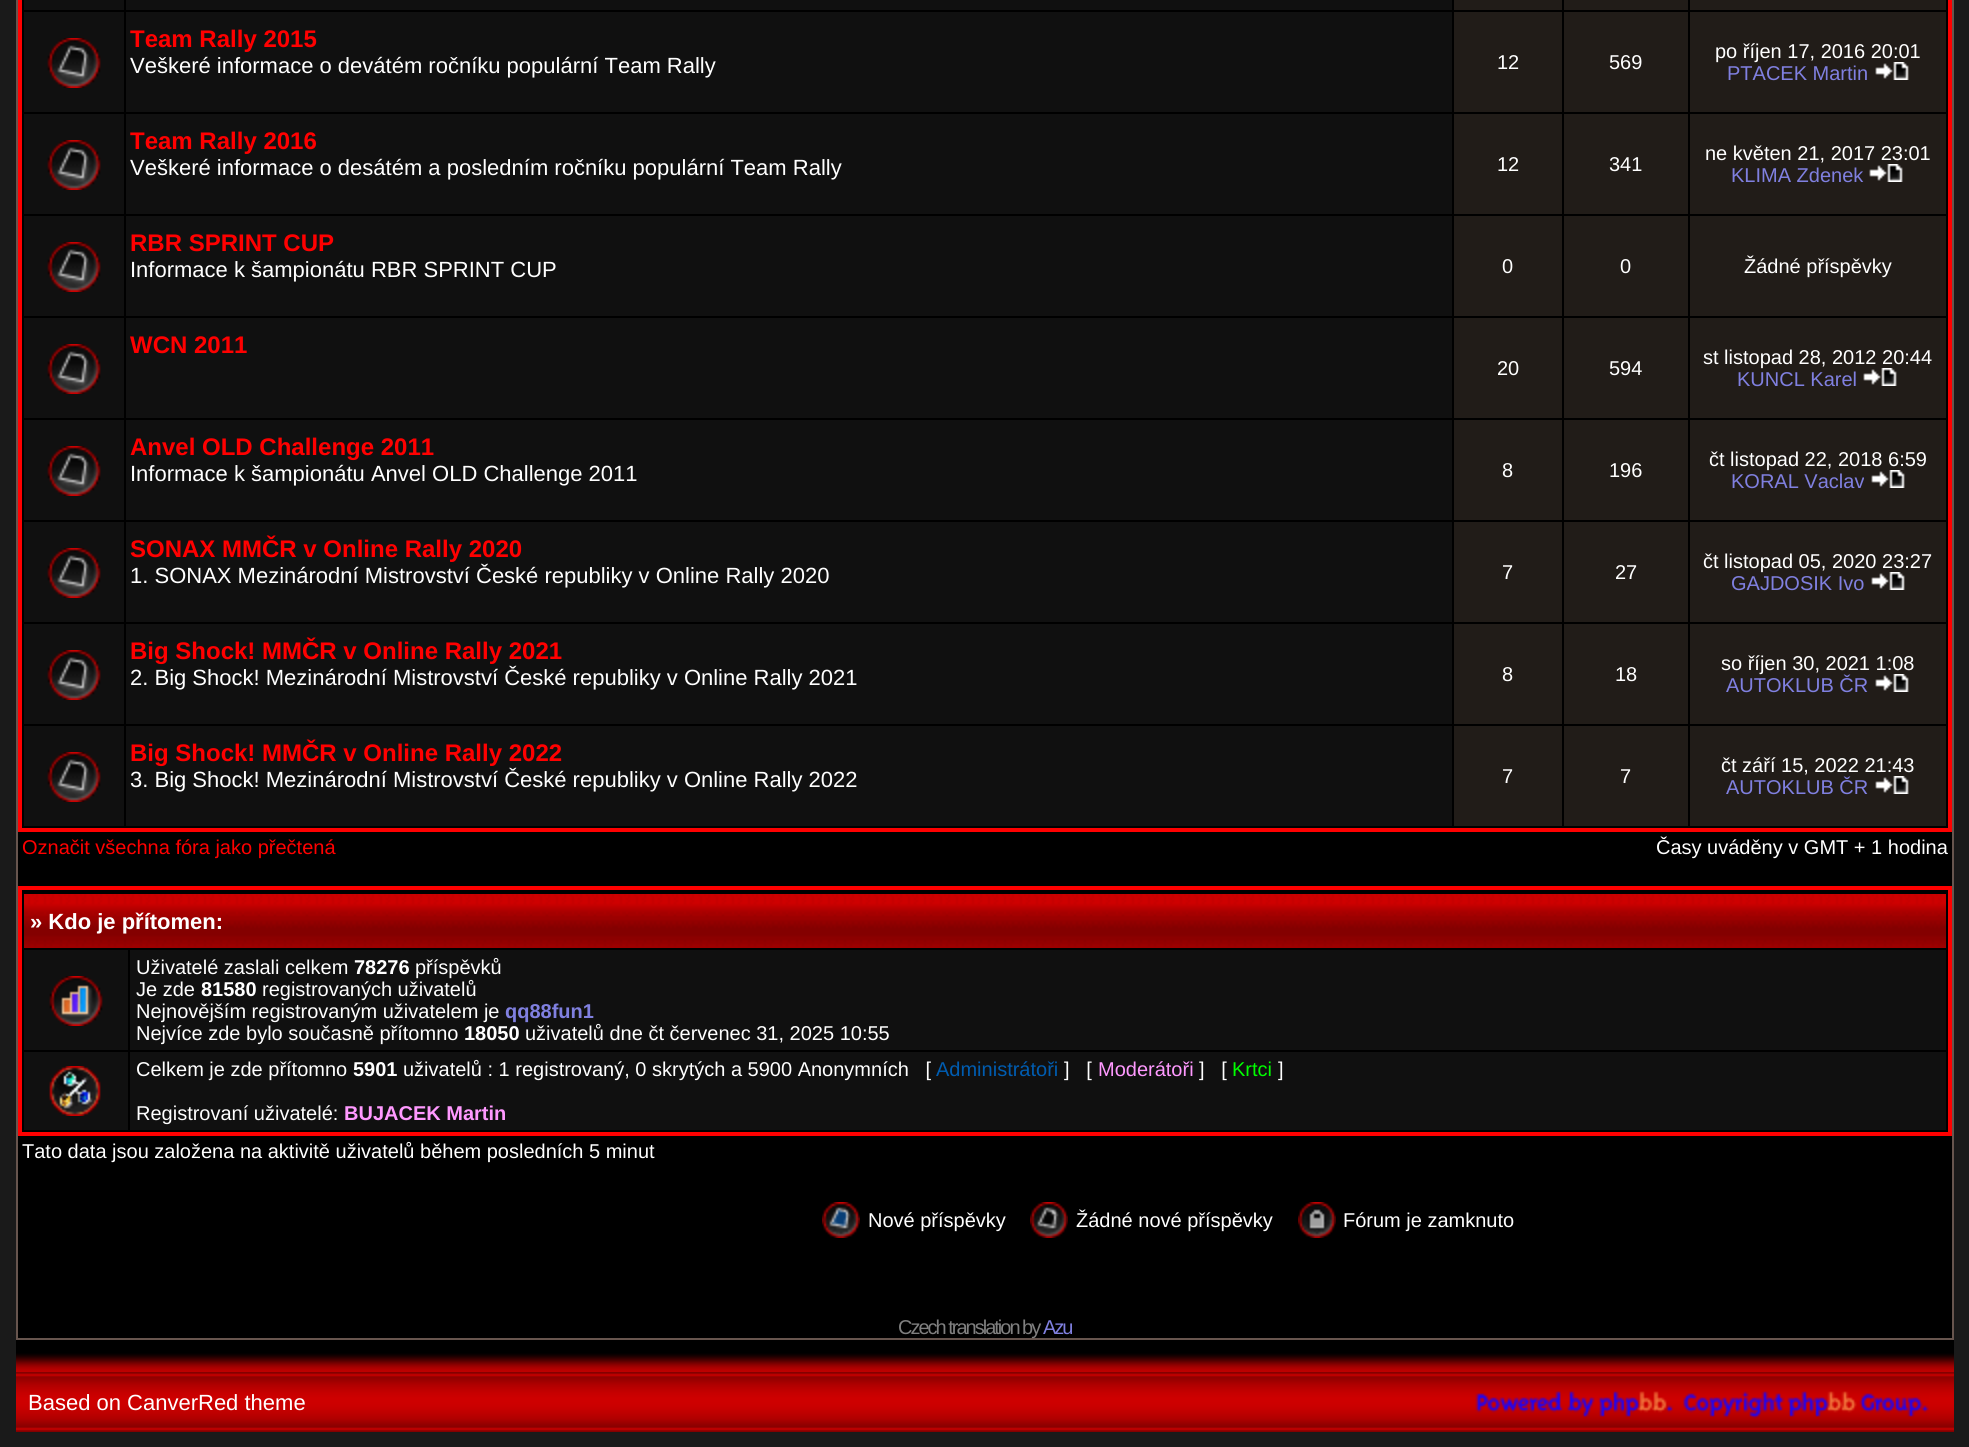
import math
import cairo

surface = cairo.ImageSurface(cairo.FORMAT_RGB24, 1969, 1447)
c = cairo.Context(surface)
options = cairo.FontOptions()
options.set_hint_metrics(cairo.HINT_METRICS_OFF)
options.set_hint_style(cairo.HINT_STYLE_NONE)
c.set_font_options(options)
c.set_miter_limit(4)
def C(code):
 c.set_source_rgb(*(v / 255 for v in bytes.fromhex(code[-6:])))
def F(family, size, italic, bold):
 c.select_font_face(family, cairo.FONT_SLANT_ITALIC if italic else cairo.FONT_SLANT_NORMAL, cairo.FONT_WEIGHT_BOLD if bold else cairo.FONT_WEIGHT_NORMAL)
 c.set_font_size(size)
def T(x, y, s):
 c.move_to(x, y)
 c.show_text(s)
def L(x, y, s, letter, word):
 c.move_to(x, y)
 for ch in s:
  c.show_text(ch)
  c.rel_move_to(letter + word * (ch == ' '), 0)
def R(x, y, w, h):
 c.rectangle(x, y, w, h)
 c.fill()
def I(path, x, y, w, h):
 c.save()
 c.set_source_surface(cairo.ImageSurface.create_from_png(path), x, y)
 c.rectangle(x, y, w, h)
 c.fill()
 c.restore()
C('1a1a1a')
c.paint()
C('000000')
c.rectangle(17,-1,1936,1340)
c.fill_preserve()
C('67554e')
c.stroke()
c.rectangle(20,-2,1930,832)
C('ff0000')
c.set_line_width(4)
c.stroke()
C('101010')
R(24,0,100,10)
R(126,0,1326,10)
C('211c18')
R(1454,0,108,10)
R(1564,0,124,10)
R(1690,0,256,10)
C('101010')
R(24,12,100,100)
I('1.png',47,38,54,50)
R(126,12,1326,100)
F('Liberation Sans',24,0,1)
C('ff0000')
T(130,47,'Team Rally 2015')
F('Liberation Sans',22,0,0)
C('ffffff')
T(130,73,'Veškeré informace o devátém ročníku populární Team Rally')
C('211c18')
R(1454,12,108,100)
F('Liberation Sans',20,0,0)
C('ffffff')
T(1497,69,'12')
C('211c18')
R(1564,12,124,100)
C('ffffff')
T(1609,69,'569')
C('211c18')
R(1690,12,256,100)
C('ffffff')
T(1715,58,'po říjen 17, 2016 20:01')
C('8080e0')
T(1727,80,'PTACEK Martin')
I('2.png',1875,62,34,18)
C('101010')
R(24,114,100,100)
I('1.png',47,140,54,50)
R(126,114,1326,100)
F('Liberation Sans',24,0,1)
C('ff0000')
T(130,149,'Team Rally 2016')
F('Liberation Sans',22,0,0)
C('ffffff')
T(130,175,'Veškeré informace o desátém a posledním ročníku populární Team Rally')
C('211c18')
R(1454,114,108,100)
F('Liberation Sans',20,0,0)
C('ffffff')
T(1497,171,'12')
C('211c18')
R(1564,114,124,100)
C('ffffff')
T(1609,171,'341')
C('211c18')
R(1690,114,256,100)
C('ffffff')
T(1705,160,'ne květen 21, 2017 23:01')
C('8080e0')
T(1731,182,'KLIMA Zdenek')
I('2.png',1869,164,34,18)
C('101010')
R(24,216,100,100)
I('1.png',47,242,54,50)
R(126,216,1326,100)
F('Liberation Sans',24,0,1)
C('ff0000')
T(130,251,'RBR SPRINT CUP')
F('Liberation Sans',22,0,0)
C('ffffff')
T(130,277,'Informace k šampionátu RBR SPRINT CUP')
C('211c18')
R(1454,216,108,100)
F('Liberation Sans',20,0,0)
C('ffffff')
T(1502,273,'0')
C('211c18')
R(1564,216,124,100)
C('ffffff')
T(1620,273,'0')
C('211c18')
R(1690,216,256,100)
C('ffffff')
T(1744,273,'Žádné příspěvky')
C('101010')
R(24,318,100,100)
I('1.png',47,344,54,50)
R(126,318,1326,100)
F('Liberation Sans',24,0,1)
C('ff0000')
T(130,353,'WCN 2011')
C('211c18')
R(1454,318,108,100)
F('Liberation Sans',20,0,0)
C('ffffff')
T(1497,375,'20')
C('211c18')
R(1564,318,124,100)
C('ffffff')
T(1609,375,'594')
C('211c18')
R(1690,318,256,100)
C('ffffff')
T(1703,364,'st listopad 28, 2012 20:44')
C('8080e0')
T(1737,386,'KUNCL Karel')
I('2.png',1863,368,34,18)
C('101010')
R(24,420,100,100)
I('1.png',47,446,54,50)
R(126,420,1326,100)
F('Liberation Sans',24,0,1)
C('ff0000')
T(130,455,'Anvel OLD Challenge 2011')
F('Liberation Sans',22,0,0)
C('ffffff')
T(130,481,'Informace k šampionátu Anvel OLD Challenge 2011')
C('211c18')
R(1454,420,108,100)
F('Liberation Sans',20,0,0)
C('ffffff')
T(1502,477,'8')
C('211c18')
R(1564,420,124,100)
C('ffffff')
T(1609,477,'196')
C('211c18')
R(1690,420,256,100)
C('ffffff')
T(1709,466,'čt listopad 22, 2018 6:59')
C('8080e0')
T(1731,488,'KORAL Vaclav')
I('2.png',1871,470,34,18)
C('101010')
R(24,522,100,100)
I('1.png',47,548,54,50)
R(126,522,1326,100)
F('Liberation Sans',24,0,1)
C('ff0000')
T(130,557,'SONAX MMČR v Online Rally 2020')
F('Liberation Sans',22,0,0)
C('ffffff')
T(130,583,'1. SONAX Mezinárodní Mistrovství České republiky v Online Rally 2020')
C('211c18')
R(1454,522,108,100)
F('Liberation Sans',20,0,0)
C('ffffff')
T(1502,579,'7')
C('211c18')
R(1564,522,124,100)
C('ffffff')
T(1615,579,'27')
C('211c18')
R(1690,522,256,100)
C('ffffff')
T(1703,568,'čt listopad 05, 2020 23:27')
C('8080e0')
T(1731,590,'GAJDOSIK Ivo')
I('2.png',1871,572,34,18)
C('101010')
R(24,624,100,100)
I('1.png',47,650,54,50)
R(126,624,1326,100)
F('Liberation Sans',24,0,1)
C('ff0000')
T(130,659,'Big Shock! MMČR v Online Rally 2021')
F('Liberation Sans',22,0,0)
C('ffffff')
T(130,685,'2. Big Shock! Mezinárodní Mistrovství České republiky v Online Rally 2021')
C('211c18')
R(1454,624,108,100)
F('Liberation Sans',20,0,0)
C('ffffff')
T(1502,681,'8')
C('211c18')
R(1564,624,124,100)
C('ffffff')
T(1615,681,'18')
C('211c18')
R(1690,624,256,100)
C('ffffff')
T(1721,670,'so říjen 30, 2021 1:08')
C('8080e0')
T(1726,692,'AUTOKLUB ČR')
I('2.png',1875,674,34,18)
C('101010')
R(24,726,100,100)
I('1.png',47,752,54,50)
R(126,726,1326,100)
F('Liberation Sans',24,0,1)
C('ff0000')
T(130,761,'Big Shock! MMČR v Online Rally 2022')
F('Liberation Sans',22,0,0)
C('ffffff')
T(130,787,'3. Big Shock! Mezinárodní Mistrovství České republiky v Online Rally 2022')
C('211c18')
R(1454,726,108,100)
F('Liberation Sans',20,0,0)
C('ffffff')
T(1502,783,'7')
C('211c18')
R(1564,726,124,100)
C('ffffff')
T(1620,783,'7')
C('211c18')
R(1690,726,256,100)
C('ffffff')
T(1721,772,'čt září 15, 2022 21:43')
C('8080e0')
T(1726,794,'AUTOKLUB ČR')
I('2.png',1875,776,34,18)
C('ff0000')
T(22,854,'Označit všechna fóra jako přečtená')
C('ffffff')
T(1656,854,'Časy uváděny v GMT + 1 hodina')
c.rectangle(20,888,1930,246)
C('ff0000')
c.stroke()
I('3.png',24,894,1922,54)
F('Liberation Sans',22,0,1)
C('ffffff')
T(30,929,'» Kdo je přítomen:')
C('101010')
R(24,950,104,100)
I('4.png',49,976,54,50)
R(130,950,1816,100)
F('Liberation Sans',20,0,0)
C('ffffff')
T(136,974,'Uživatelé zaslali celkem')
F('Liberation Sans',20,0,1)
T(354,974,'78276')
F('Liberation Sans',20,0,0)
T(415,974,'příspěvků')
T(136,996,'Je zde')
F('Liberation Sans',20,0,1)
T(201,996,'81580')
F('Liberation Sans',20,0,0)
T(262,996,'registrovaných uživatelů')
T(136,1018,'Nejnovějším registrovaným uživatelem je')
F('Liberation Sans',20,0,1)
C('8080e0')
T(505,1018,'qq88fun1')
F('Liberation Sans',20,0,0)
C('ffffff')
T(136,1040,'Nejvíce zde bylo současně přítomno')
F('Liberation Sans',20,0,1)
T(464,1040,'18050')
F('Liberation Sans',20,0,0)
T(525,1040,'uživatelů dne čt červenec 31, 2025 10:55')
C('101010')
R(24,1052,104,78)
I('5.png',49,1066,52,50)
R(130,1052,1816,78)
C('ffffff')
T(136,1076,'Celkem je zde přítomno')
F('Liberation Sans',20,0,1)
T(353,1076,'5901')
F('Liberation Sans',20,0,0)
T(403,1076,'uživatelů : 1 registrovaný, 0 skrytých a 5900 Anonymních   [')
C('005cb0')
T(936,1076,'Administrátoři')
C('ffffff')
T(1064,1076,']   [')
C('ff99ff')
T(1098,1076,'Moderátoři')
C('ffffff')
T(1199,1076,']   [')
C('00ff00')
T(1232,1076,'Krtci')
C('ffffff')
T(1278,1076,']')
T(136,1120,'Registrovaní uživatelé:')
F('Liberation Sans',20,0,1)
C('ff99ff')
T(344,1120,'BUJACEK Martin')
F('Liberation Sans',20,0,0)
C('ffffff')
T(22,1158,'Tato data jsou založena na aktivitě uživatelů během posledních 5 minut')
I('6.png',822,1202,38,36)
T(868,1227,'Nové příspěvky')
I('7.png',1030,1202,38,36)
T(1076,1227,'Žádné nové příspěvky')
I('8.png',1298,1202,38,36)
T(1343,1227,'Fórum je zamknuto')
C('808080')
L(898,1334,'Czech translation by',-2,0)
C('8080e0')
L(1043,1334,'Azu',-2,0)
I('9.png',16,1340,1938,32)
I('10.png',16,1372,730,60)
F('Liberation Sans',22,0,0)
C('ffffff')
T(28,1410,'Based on CanverRed theme')
I('11.png',746,1372,1208,60)
I('12.png',1475,1391,454,28)
surface.write_to_png('o.png')
